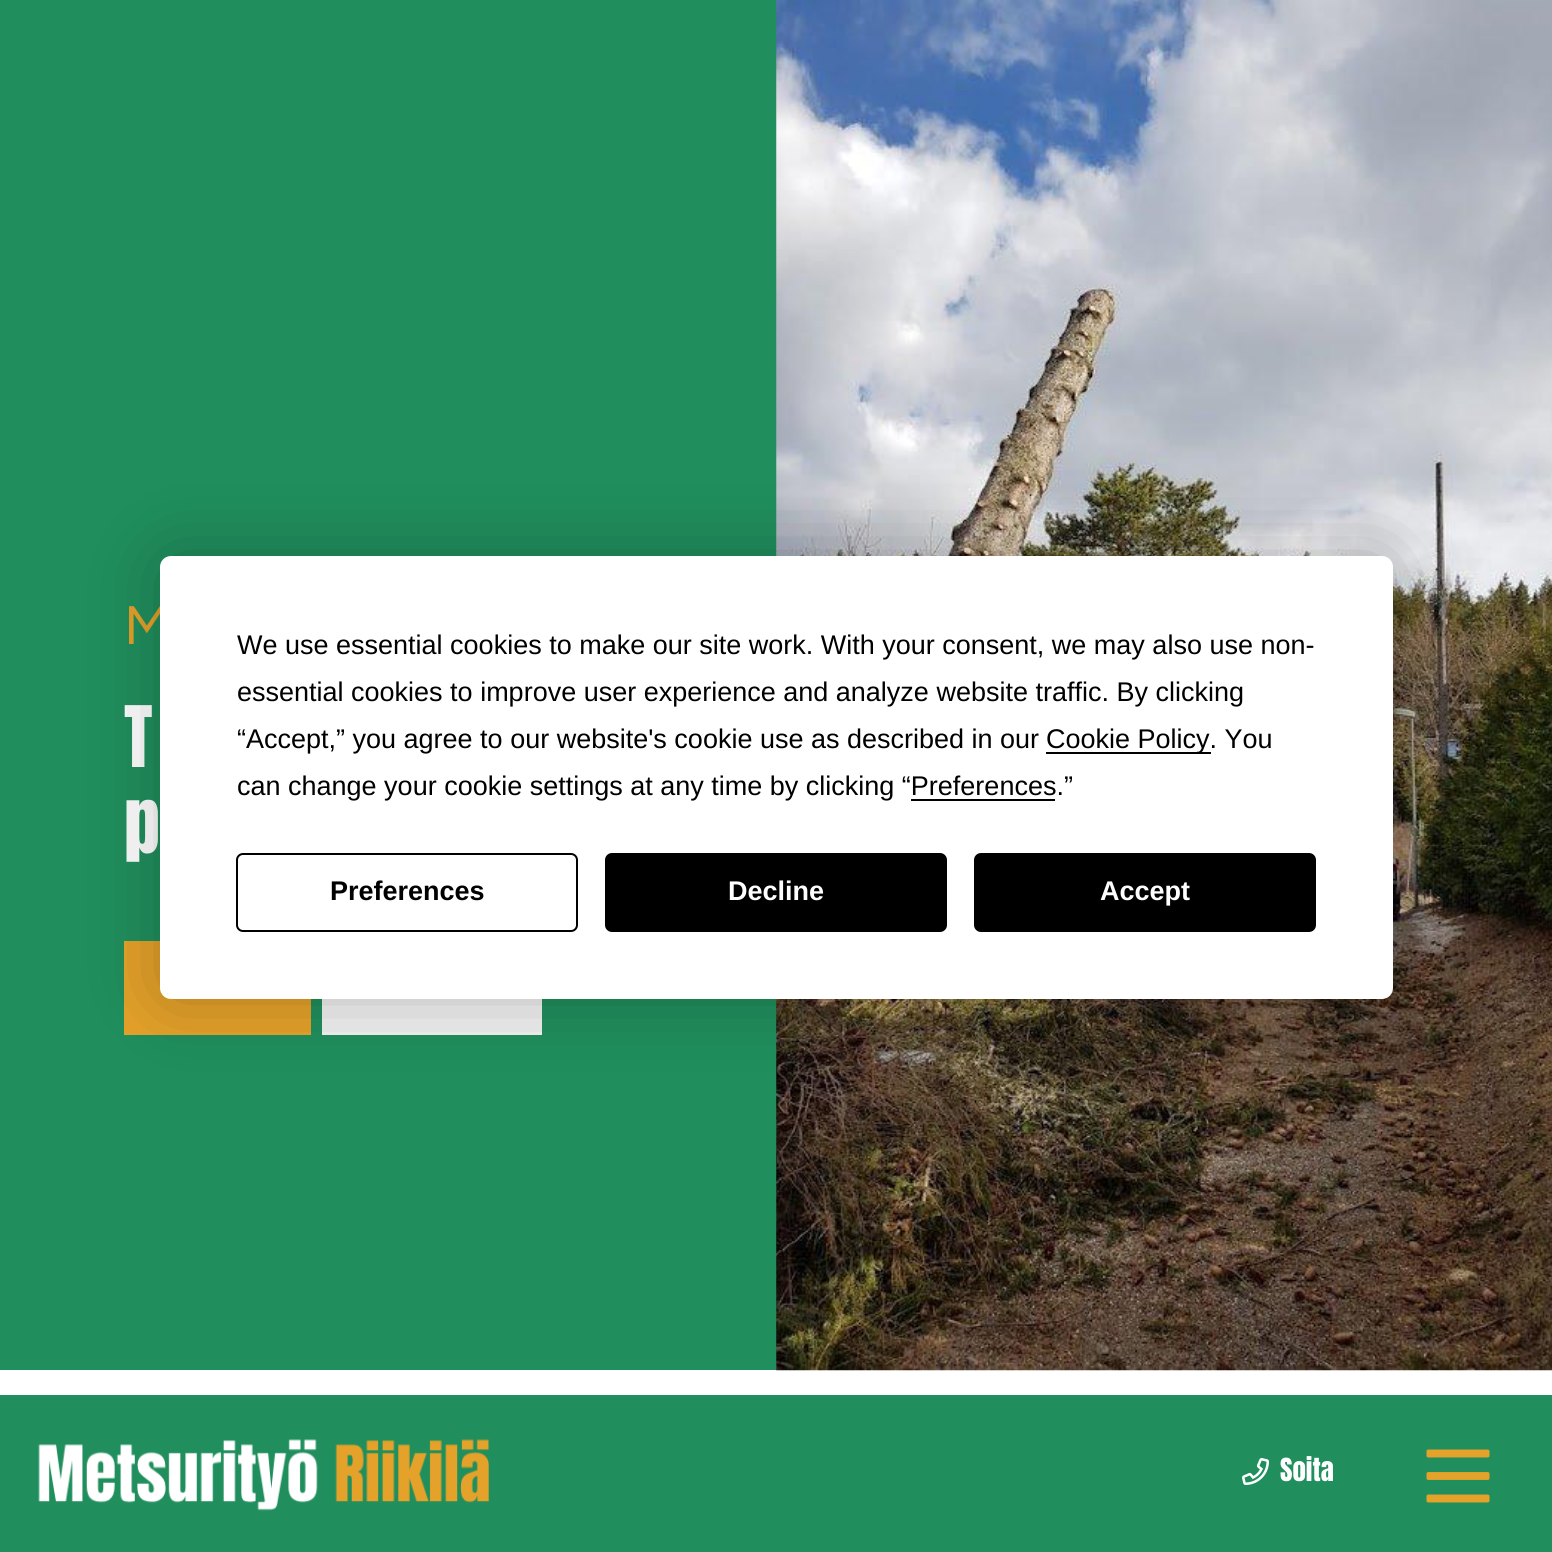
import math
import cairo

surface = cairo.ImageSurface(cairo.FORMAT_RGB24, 1552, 1552)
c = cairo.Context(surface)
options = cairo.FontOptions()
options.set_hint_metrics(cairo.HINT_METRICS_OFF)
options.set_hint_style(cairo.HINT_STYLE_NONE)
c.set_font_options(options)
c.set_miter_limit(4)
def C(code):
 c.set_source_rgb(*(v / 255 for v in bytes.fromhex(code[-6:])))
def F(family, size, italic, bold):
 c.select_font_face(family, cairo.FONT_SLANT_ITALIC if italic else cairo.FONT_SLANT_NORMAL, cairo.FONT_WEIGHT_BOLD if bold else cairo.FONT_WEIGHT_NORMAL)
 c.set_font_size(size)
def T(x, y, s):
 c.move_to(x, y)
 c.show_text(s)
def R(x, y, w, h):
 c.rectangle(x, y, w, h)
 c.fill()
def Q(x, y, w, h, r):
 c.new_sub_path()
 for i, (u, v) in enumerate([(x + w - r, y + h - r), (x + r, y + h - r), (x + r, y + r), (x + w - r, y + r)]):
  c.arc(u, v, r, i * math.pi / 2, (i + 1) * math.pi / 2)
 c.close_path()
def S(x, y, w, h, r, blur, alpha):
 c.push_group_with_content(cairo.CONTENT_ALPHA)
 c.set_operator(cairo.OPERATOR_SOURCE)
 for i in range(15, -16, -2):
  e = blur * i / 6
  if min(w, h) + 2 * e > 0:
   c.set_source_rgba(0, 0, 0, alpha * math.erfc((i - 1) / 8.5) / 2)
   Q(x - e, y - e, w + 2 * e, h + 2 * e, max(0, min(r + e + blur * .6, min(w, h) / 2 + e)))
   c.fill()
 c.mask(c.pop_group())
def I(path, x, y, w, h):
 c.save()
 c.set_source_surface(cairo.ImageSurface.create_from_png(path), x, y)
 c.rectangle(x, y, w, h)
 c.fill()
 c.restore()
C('ffffff')
c.paint()
C('208f5d')
R(0,0,777,1370)
F('Figtree',54,0,0)
C('e5a22a')
T(124,644,'M')
F('Anton',72,0,0)
C('ffffff')
T(124,767,'T')
T(124,853,'p')
C('e5a22a')
R(124,941,187,94)
C('f2f2f2')
R(322,999,220,36)
I('1.png',776,0,776,1371)
C('208f5d')
R(0,1395,1552,157)
I('2.png',38,1439,451,72)
I('3.png',1426,1449,64,54)
I('4.png',1242,1458,27,27)
F('Anton',27,0,0)
C('ffffff')
T(1280,1481,'Soita')
C('000000')
S(160,556,1233,443,11,39.5,.25)
C('ffffff')
Q(160,556,1233,443,11)
c.fill()
F('Liberation Sans',27,0,0)
C('000000')
T(237,654,'We use essential cookies to make our site work. With your consent, we may also use non-')
T(237,701,'essential cookies to improve user experience and analyze website traffic. By clicking')
T(237,748,'“Accept,” you agree to our website\'s cookie use as described in our')
R(1046,752,165,2)
T(1046,748,'Cookie Policy. You')
T(237,795,'can change your cookie settings at any time by clicking “Preferences.”')
R(911,799,144,2)
Q(237,854,340,77,6)
c.stroke()
F('Liberation Sans',27,0,1)
T(330,900,'Preferences')
Q(606,854,340,77,6)
c.fill_preserve()
c.stroke()
C('ffffff')
T(728,900,'Decline')
C('000000')
Q(975,854,340,77,6)
c.fill_preserve()
c.stroke()
C('ffffff')
T(1100,900,'Accept')
surface.write_to_png('o.png')
